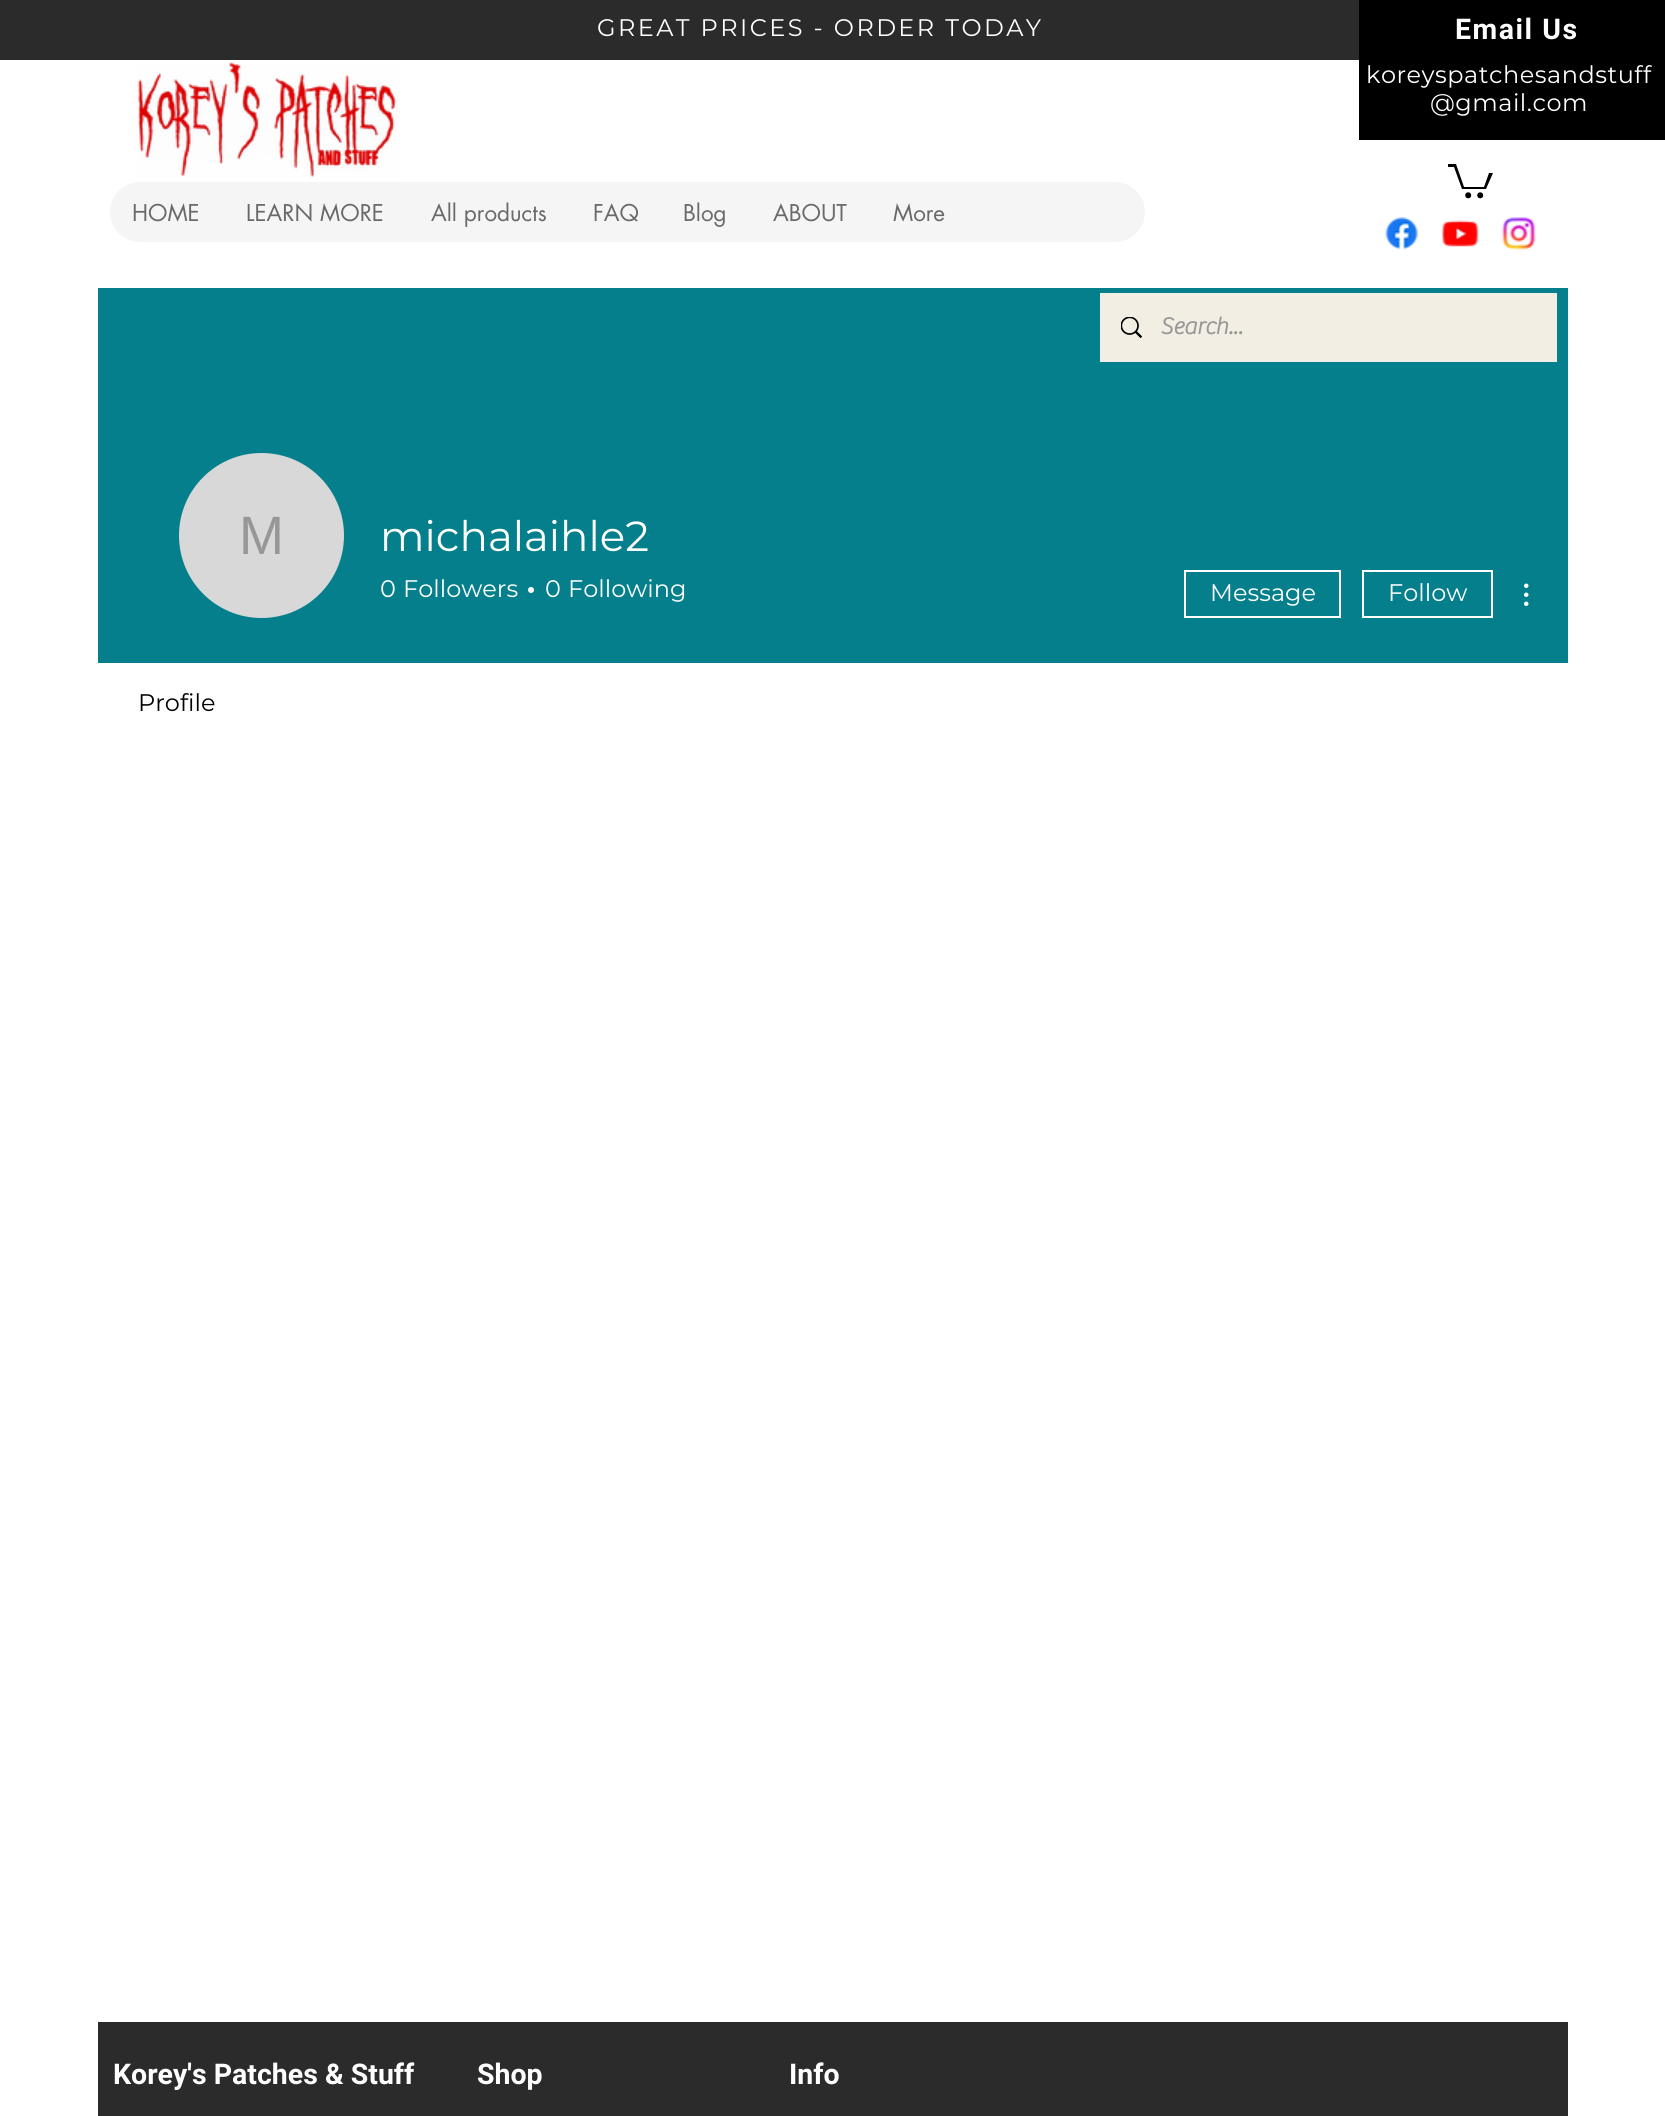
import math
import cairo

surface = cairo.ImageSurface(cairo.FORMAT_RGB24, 1665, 2116)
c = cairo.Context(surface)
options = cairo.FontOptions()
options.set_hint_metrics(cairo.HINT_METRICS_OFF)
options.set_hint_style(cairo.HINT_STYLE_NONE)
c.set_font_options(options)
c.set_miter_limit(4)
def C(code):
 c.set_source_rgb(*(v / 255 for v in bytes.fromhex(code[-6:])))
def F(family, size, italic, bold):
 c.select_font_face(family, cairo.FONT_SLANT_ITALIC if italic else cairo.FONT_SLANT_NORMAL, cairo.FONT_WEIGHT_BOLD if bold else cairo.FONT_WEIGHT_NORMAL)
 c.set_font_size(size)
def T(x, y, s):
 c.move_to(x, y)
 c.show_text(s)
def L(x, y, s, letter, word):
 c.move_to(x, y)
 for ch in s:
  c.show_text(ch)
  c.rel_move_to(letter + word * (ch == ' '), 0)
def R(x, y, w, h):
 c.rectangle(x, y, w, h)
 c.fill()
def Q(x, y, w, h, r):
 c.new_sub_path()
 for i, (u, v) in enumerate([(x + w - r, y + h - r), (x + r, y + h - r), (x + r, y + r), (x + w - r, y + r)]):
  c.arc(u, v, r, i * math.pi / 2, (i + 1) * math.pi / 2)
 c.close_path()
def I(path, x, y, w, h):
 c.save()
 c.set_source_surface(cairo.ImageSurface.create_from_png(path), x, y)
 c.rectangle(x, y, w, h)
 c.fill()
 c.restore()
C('ffffff')
c.paint()
C('2b2b2b')
R(0,0,1359,60)
F('Montserrat',24,0,0)
C('ffffff')
L(597,36,'GREAT PRICES - ORDER TODAY',2.4,0)
I('1.png',135,62,264,116)
C('000000')
c.new_path()
c.move_to(1493,173)
c.line_to(1486,189)
c.line_to(1462,189)
c.line_to(1454,167)
c.line_to(1448,167)
c.line_to(1448,164)
c.line_to(1456,164)
c.line_to(1464,187)
c.line_to(1484,187)
c.line_to(1489,173)
c.fill()
c.arc(1480.2,195.3,3,0,2 * math.pi)
c.fill()
c.arc(1468.2,195.3,3,0,2 * math.pi)
c.fill()
C('f5f5f5')
Q(110,182,1035,60,30)
c.fill()
F('futura',22.5,0,0)
C('696969')
T(132,221,'HOME')
T(246,221,'LEARN MORE')
T(431,221,'All products')
T(593,221,'FAQ')
T(683,221,'Blog')
T(773,221,'ABOUT')
T(893,221,'More')
I('2.png',1385,217,34,33)
I('3.png',1442,220,37,27)
I('4.png',1502,217,34,33)
C('047f8b')
R(98,288,1470,375)
C('f2eee4')
R(1100,293,457,69)
I('5.png',1121,317,21,21)
F('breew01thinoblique',24,0,1)
C('979797')
T(1160,334,'Search...')
C('000000')
R(1359,0,306,140)
F('Roboto',28.5,0,1)
C('ffffff')
L(1455,39,'Email Us',1.5,0)
F('Montserrat',24,0,0)
L(1366,83,'koreyspatchesandstuff',.5,0)
L(1430,111,'@gmail.com',.5,0)
C('d8d8d8')
c.new_path()
c.arc(261.5,535.5,82.5,0,2 * math.pi)
c.fill()
F('Liberation Sans',54,0,0)
C('979797')
T(239,554,'M')
F('Montserrat',42,0,0)
C('ffffff')
T(380,551,'michalaihle2')
F('Montserrat',24,0,0)
T(380,597,'0')
T(403,597,'Followers')
c.new_path()
c.arc(531,590,3,0,2 * math.pi)
c.fill()
T(545,597,'0')
T(568,597,'Following')
c.rectangle(1185,571,155,46)
c.stroke()
T(1210,601,'Message')
c.rectangle(1363,571,129,46)
c.stroke()
T(1388,601,'Follow')
I('6.png',1524,583,5,23)
C('000000')
T(138,711,'Profile')
C('2b2b2b')
R(98,2022,1470,94)
F('Roboto',28.5,0,1)
C('ffffff')
T(113,2084,'Korey\'s Patches & Stuff')
T(477,2084,'Shop')
T(789,2084,'Info')
surface.write_to_png('o.png')
